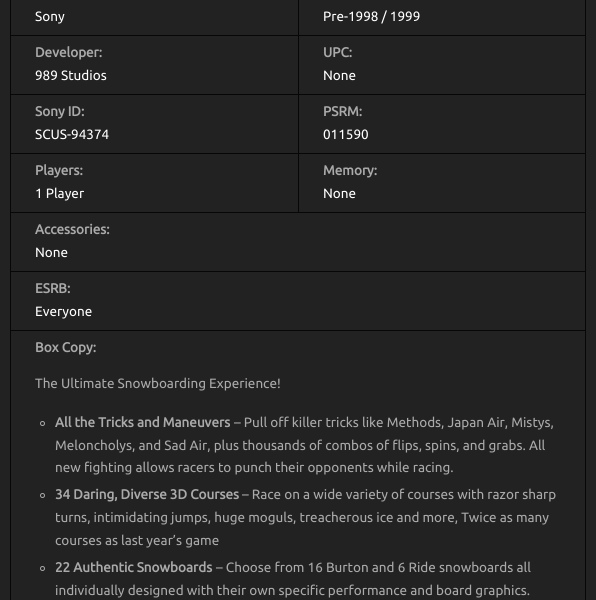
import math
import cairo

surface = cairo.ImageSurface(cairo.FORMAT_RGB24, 596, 600)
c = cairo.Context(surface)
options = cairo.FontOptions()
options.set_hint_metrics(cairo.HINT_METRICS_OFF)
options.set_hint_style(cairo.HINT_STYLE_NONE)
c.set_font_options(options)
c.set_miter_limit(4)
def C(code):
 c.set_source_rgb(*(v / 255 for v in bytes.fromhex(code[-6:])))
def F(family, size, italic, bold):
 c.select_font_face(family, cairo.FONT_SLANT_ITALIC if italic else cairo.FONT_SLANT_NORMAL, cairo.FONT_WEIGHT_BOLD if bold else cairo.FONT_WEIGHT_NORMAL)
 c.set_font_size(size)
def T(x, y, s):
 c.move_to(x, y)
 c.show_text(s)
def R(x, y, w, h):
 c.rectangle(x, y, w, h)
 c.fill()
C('222222')
c.paint()
C('070707')
R(585,0,1,600)
R(10,0,1,600)
F('Ubuntu',13.5,0,0)
C('ffffff')
T(35,21,'Sony')
T(323,21,'Pre-1998 / 1999')
C('070707')
R(10,35,576,1)
R(10,94,576,1)
R(10,153,576,1)
R(10,212,576,1)
R(298,153,1,60)
R(298,94,1,60)
R(298,0,1,95)
F('Ubuntu',13.5,0,1)
C('aaaaaa')
T(35,57,'Developer:')
F('Ubuntu',13.5,0,0)
C('ffffff')
T(35,80,'989 Studios')
F('Ubuntu',13.5,0,1)
C('aaaaaa')
T(323,57,'UPC:')
F('Ubuntu',13.5,0,0)
C('ffffff')
T(323,80,'None')
F('Ubuntu',13.5,0,1)
C('aaaaaa')
T(35,116,'Sony ID:')
F('Ubuntu',13.5,0,0)
C('ffffff')
T(35,139,'SCUS-94374')
F('Ubuntu',13.5,0,1)
C('aaaaaa')
T(323,116,'PSRM:')
F('Ubuntu',13.5,0,0)
C('ffffff')
T(323,139,'011590')
F('Ubuntu',13.5,0,1)
C('aaaaaa')
T(35,175,'Players:')
F('Ubuntu',13.5,0,0)
C('ffffff')
T(35,198,'1 Player')
F('Ubuntu',13.5,0,1)
C('aaaaaa')
T(323,175,'Memory:')
F('Ubuntu',13.5,0,0)
C('ffffff')
T(323,198,'None')
F('Ubuntu',13.5,0,1)
C('aaaaaa')
T(35,234,'Accessories:')
F('Ubuntu',13.5,0,0)
C('ffffff')
T(35,257,'None')
C('070707')
R(10,271,576,1)
F('Ubuntu',13.5,0,1)
C('aaaaaa')
T(35,293,'ESRB:')
F('Ubuntu',13.5,0,0)
C('ffffff')
T(35,316,'Everyone')
C('070707')
R(10,330,576,1)
F('Ubuntu',13.5,0,1)
C('aaaaaa')
T(35,352,'Box Copy:')
F('Ubuntu',13.5,0,0)
T(35,388,'The Ultimate Snowboarding Experience!')
c.new_path()
c.arc(42.5,423.5,2,0,2 * math.pi)
c.set_line_width(1)
c.stroke()
F('Ubuntu',13.5,0,1)
T(55,427,'All the Tricks and Maneuvers')
F('Ubuntu',13.5,0,0)
T(234,427,'– Pull off killer tricks like Methods, Japan Air, Mistys,')
T(55,450,'Meloncholys, and Sad Air, plus thousands of combos of flips, spins, and grabs. All')
T(55,472,'new fighting allows racers to punch their opponents while racing.')
c.new_path()
c.arc(42.5,495.5,2,0,2 * math.pi)
c.stroke()
F('Ubuntu',13.5,0,1)
T(55,499,'34 Daring, Diverse 3D Courses')
F('Ubuntu',13.5,0,0)
T(242,499,'– Race on a wide variety of courses with razor sharp')
T(55,522,'turns, intimidating jumps, huge moguls, treacherous ice and more, Twice as many')
T(55,545,'courses as last year’s game')
c.new_path()
c.arc(42.5,568.5,2,0,2 * math.pi)
c.stroke()
F('Ubuntu',13.5,0,1)
T(55,572,'22 Authentic Snowboards')
F('Ubuntu',13.5,0,0)
T(216,572,'– Choose from 16 Burton and 6 Ride snowboards all')
T(55,595,'individually designed with their own specific performance and board graphics.')
surface.write_to_png('o.png')
